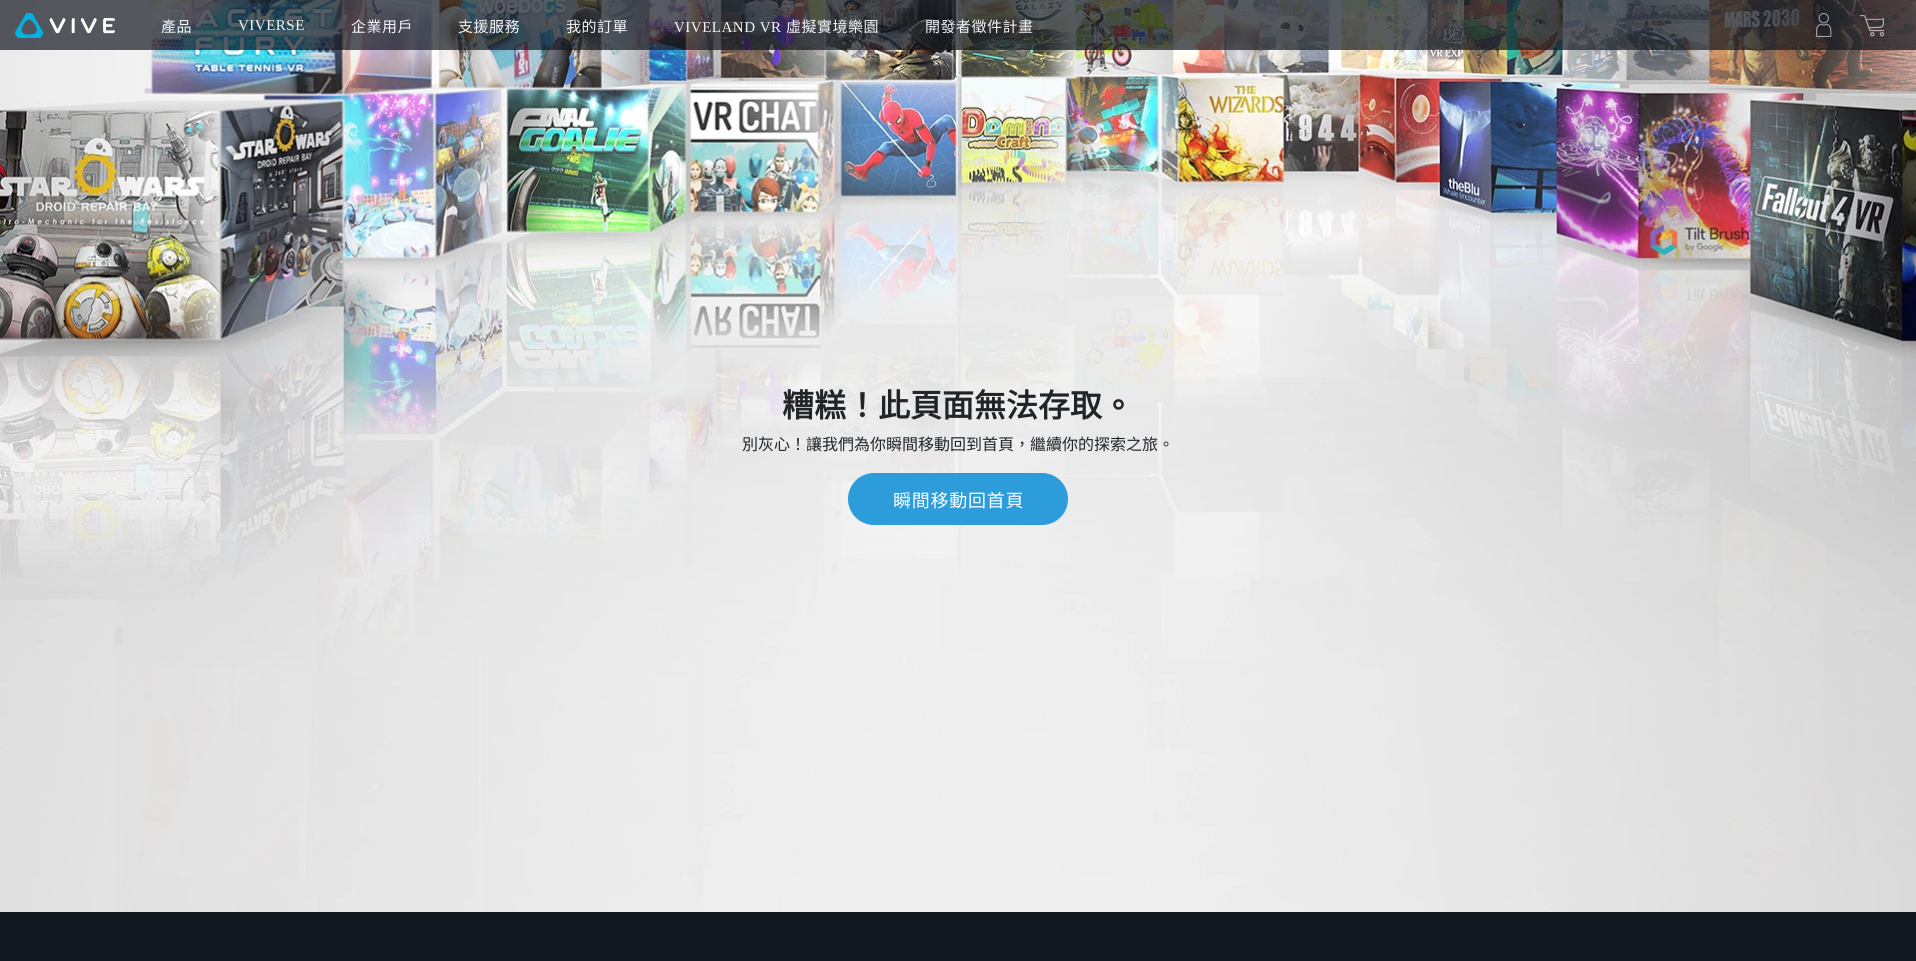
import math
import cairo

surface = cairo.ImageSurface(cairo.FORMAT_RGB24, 1916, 961)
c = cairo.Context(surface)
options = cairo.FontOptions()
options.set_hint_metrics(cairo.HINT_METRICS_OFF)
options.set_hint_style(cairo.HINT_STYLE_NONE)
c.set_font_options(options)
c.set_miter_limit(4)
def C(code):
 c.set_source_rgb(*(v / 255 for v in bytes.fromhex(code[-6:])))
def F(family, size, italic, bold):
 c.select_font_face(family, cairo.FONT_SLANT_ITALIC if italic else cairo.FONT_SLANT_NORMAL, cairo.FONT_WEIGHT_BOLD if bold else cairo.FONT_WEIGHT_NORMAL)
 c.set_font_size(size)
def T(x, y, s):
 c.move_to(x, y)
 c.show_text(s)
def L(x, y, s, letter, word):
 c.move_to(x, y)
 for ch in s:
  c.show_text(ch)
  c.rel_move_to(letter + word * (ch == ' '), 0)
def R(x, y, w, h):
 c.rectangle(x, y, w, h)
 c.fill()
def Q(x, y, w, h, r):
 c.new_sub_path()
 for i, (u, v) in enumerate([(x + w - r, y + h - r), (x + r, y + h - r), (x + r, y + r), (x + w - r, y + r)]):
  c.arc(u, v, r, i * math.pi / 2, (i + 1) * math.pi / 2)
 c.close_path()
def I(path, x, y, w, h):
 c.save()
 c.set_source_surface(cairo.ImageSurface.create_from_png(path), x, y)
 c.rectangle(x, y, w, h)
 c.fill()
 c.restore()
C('111820')
c.paint()
I('4.png',0,0,1916,912)
c.set_source_rgba(0.067,0.094,0.125,0.7)
R(0,0,1916,50)
I('1.png',15,13,100,25)
F('Noto Sans CJK TC',15,0,0)
C('f2f4f8')
L(161,32,'產品',.5,0)
F('Liberation Serif',15,0,0)
L(238,30,'VIVERSE',.5,0)
F('Noto Sans CJK TC',15,0,0)
L(351,32,'企業用戶',.5,0)
L(458,32,'支援服務',.5,0)
L(566,32,'我的訂單',.5,0)
F('Liberation Serif',15,0,0)
L(674,32,'VIVELAND VR',.5,0)
F('Noto Sans CJK TC',15,0,0)
L(786,32,'虛擬實境樂園',.5,0)
L(925,32,'開發者徵件計畫',.5,0)
I('2.png',1816,13,16,24)
I('3.png',1860,15,25,22)
F('Noto Sans CJK TC',32,0,1)
C('212529')
T(782,417,'糟糕！此頁面無法存取。')
F('Noto Sans CJK TC',16,0,0)
T(742,450,'別灰心！讓我們為你瞬間移動回到首頁，繼續你的探索之旅。')
C('2c9cdb')
Q(848.5,473.5,219,51,25.5)
c.fill_preserve()
c.set_line_width(1)
c.stroke()
F('Noto Sans CJK TC',18,0,0)
C('ffffff')
L(893,507,'瞬間移動回首頁',.75,0)
surface.write_to_png('o.png')
